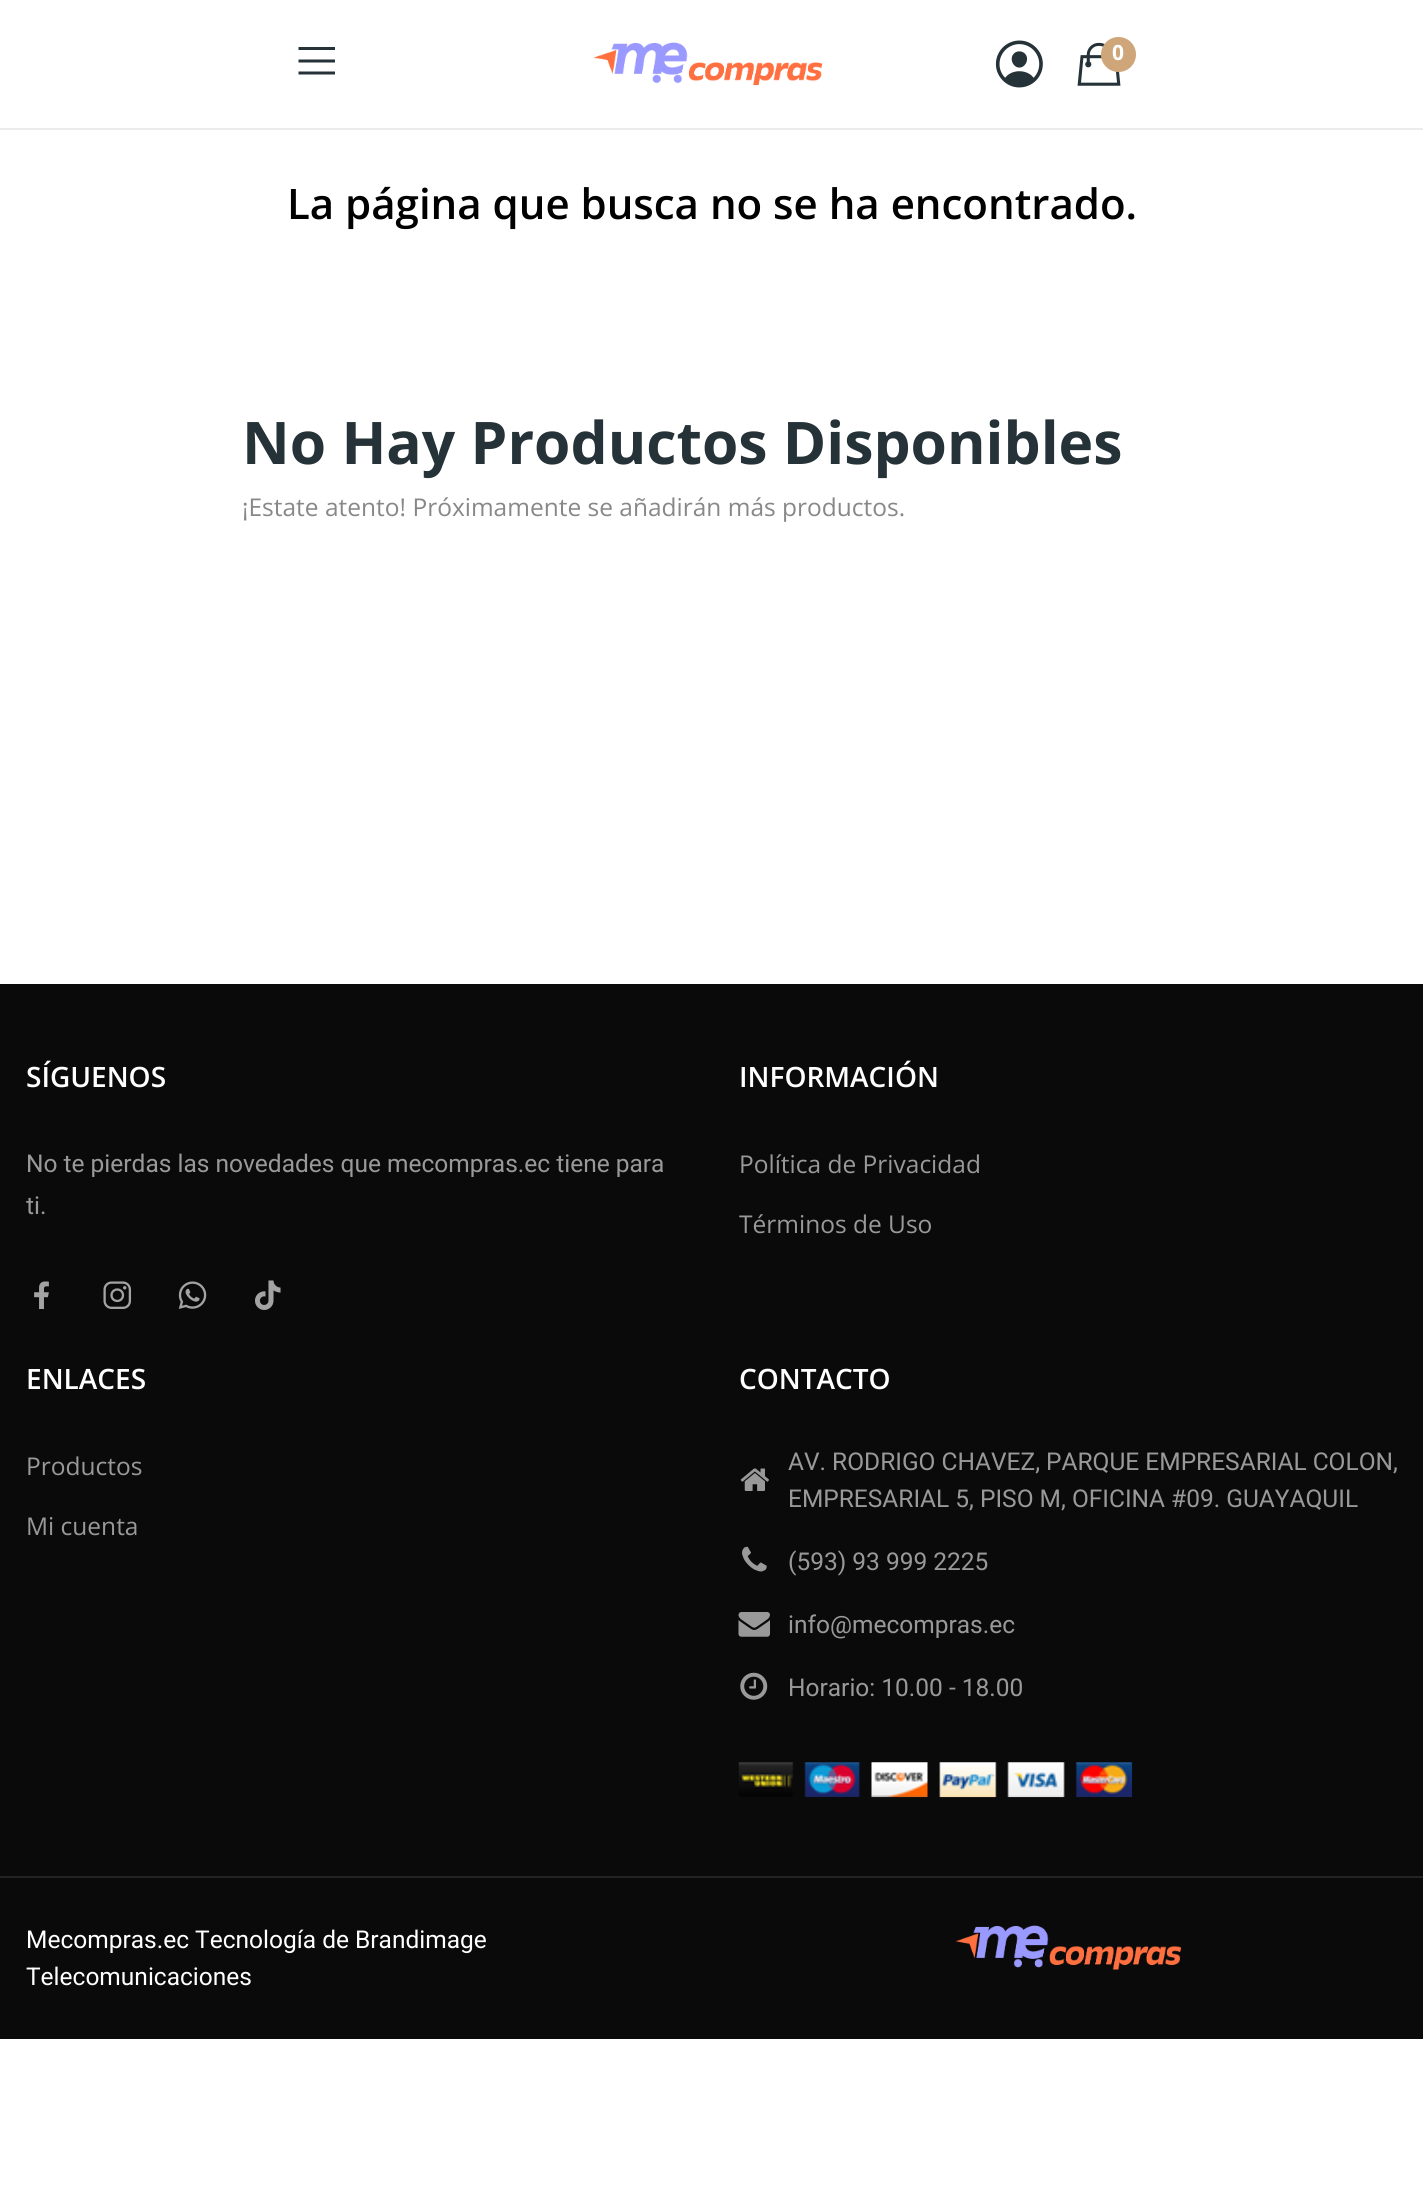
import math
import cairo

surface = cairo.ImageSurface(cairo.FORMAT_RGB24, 1423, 2204)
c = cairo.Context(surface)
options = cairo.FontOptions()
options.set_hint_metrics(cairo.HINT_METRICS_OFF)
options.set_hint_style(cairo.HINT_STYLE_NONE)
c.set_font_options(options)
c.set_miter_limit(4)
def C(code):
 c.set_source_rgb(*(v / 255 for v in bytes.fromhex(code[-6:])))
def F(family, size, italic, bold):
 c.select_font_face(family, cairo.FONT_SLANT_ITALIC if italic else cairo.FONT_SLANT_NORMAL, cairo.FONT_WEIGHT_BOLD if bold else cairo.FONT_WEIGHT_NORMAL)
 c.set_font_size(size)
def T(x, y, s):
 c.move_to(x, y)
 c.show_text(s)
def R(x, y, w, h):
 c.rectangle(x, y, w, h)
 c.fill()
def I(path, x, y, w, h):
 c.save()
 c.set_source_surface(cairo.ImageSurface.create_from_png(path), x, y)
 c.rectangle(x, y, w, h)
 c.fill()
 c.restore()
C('ffffff')
c.paint()
C('ebebeb')
R(0,128,1423,2)
C('253237')
c.new_path()
c.move_to(298.5,47)
c.line_to(298.5,50)
c.line_to(335,50)
c.line_to(335,47)
c.close_path()
c.move_to(298.5,59.5)
c.line_to(298.5,62.5)
c.line_to(335,62.5)
c.line_to(335,59.5)
c.close_path()
c.move_to(298.5,71.5)
c.line_to(298.5,74.5)
c.line_to(335,74.5)
c.line_to(335,71.5)
c.close_path()
c.fill()
I('1.png',593,42,230,44)
I('2.png',995,40,48,48)
I('3.png',1077,42,44,44)
C('cea679')
c.arc(1118.5,54.5,17.5,0,2 * math.pi)
c.fill()
F('Open Sans',21,0,1)
C('ffffff')
T(1112,60,'0')
F('Open Sans SemiBold',42,0,0)
C('000000')
T(287,219,'La página que busca no se ha encontrado.')
F('Open Sans',58.75,0,1)
C('253237')
T(242,464,'No Hay Productos Disponibles')
F('Open Sans',24.5,0,0)
C('888888')
T(242,516,'¡Estate atento! Próximamente se añadirán más productos.')
C('0a0a0a')
R(0,984,1423,892)
F('Open Sans SemiBold',28,0,0)
C('ffffff')
T(26,1087,'SÍGUENOS')
F('Roboto',24.5,0,0)
C('999999')
T(26,1172,'No te pierdas las novedades que mecompras.ec tiene para')
T(26,1214,'ti.')
I('4.png',34,1281,15,28)
I('5.png',103,1281,29,28)
I('6.png',178,1281,29,28)
I('7.png',255,1280,26,30)
F('Open Sans SemiBold',28,0,0)
C('ffffff')
T(739,1087,'INFORMACIÓN')
F('Open Sans',24.5,0,0)
C('999999')
T(739,1173,'Política de Privacidad')
T(739,1233,'Términos de Uso')
F('Open Sans SemiBold',28,0,0)
C('ffffff')
T(26,1389,'ENLACES')
F('Open Sans',24.5,0,0)
C('999999')
T(26,1475,'Productos')
T(26,1535,'Mi cuenta')
F('Open Sans SemiBold',28,0,0)
C('ffffff')
T(739,1389,'CONTACTO')
I('8.png',740,1468,29,23)
F('Roboto',24.5,0,0)
C('999999')
T(788,1470,'AV. RODRIGO CHAVEZ, PARQUE EMPRESARIAL COLON,')
T(788,1507,'EMPRESARIAL 5, PISO M, OFICINA #09. GUAYAQUIL')
I('9.png',742,1546,25,26)
T(788,1570,'(593) 93 999 2225')
I('10.png',738,1612,32,25)
T(788,1633,'info@mecompras.ec')
I('11.png',740,1672,28,28)
T(788,1696,'Horario: 10.00 - 18.00')
I('12.png',738,1762,395,36)
C('0a0a0a')
R(0,1878,1423,161)
C('232323')
R(0,1876,1423,2)
C('ffffff')
T(26,1948,'Mecompras.ec Tecnología de Brandimage')
T(26,1985,'Telecomunicaciones')
I('13.png',955,1925,227,45)
surface.write_to_png('o.png')
